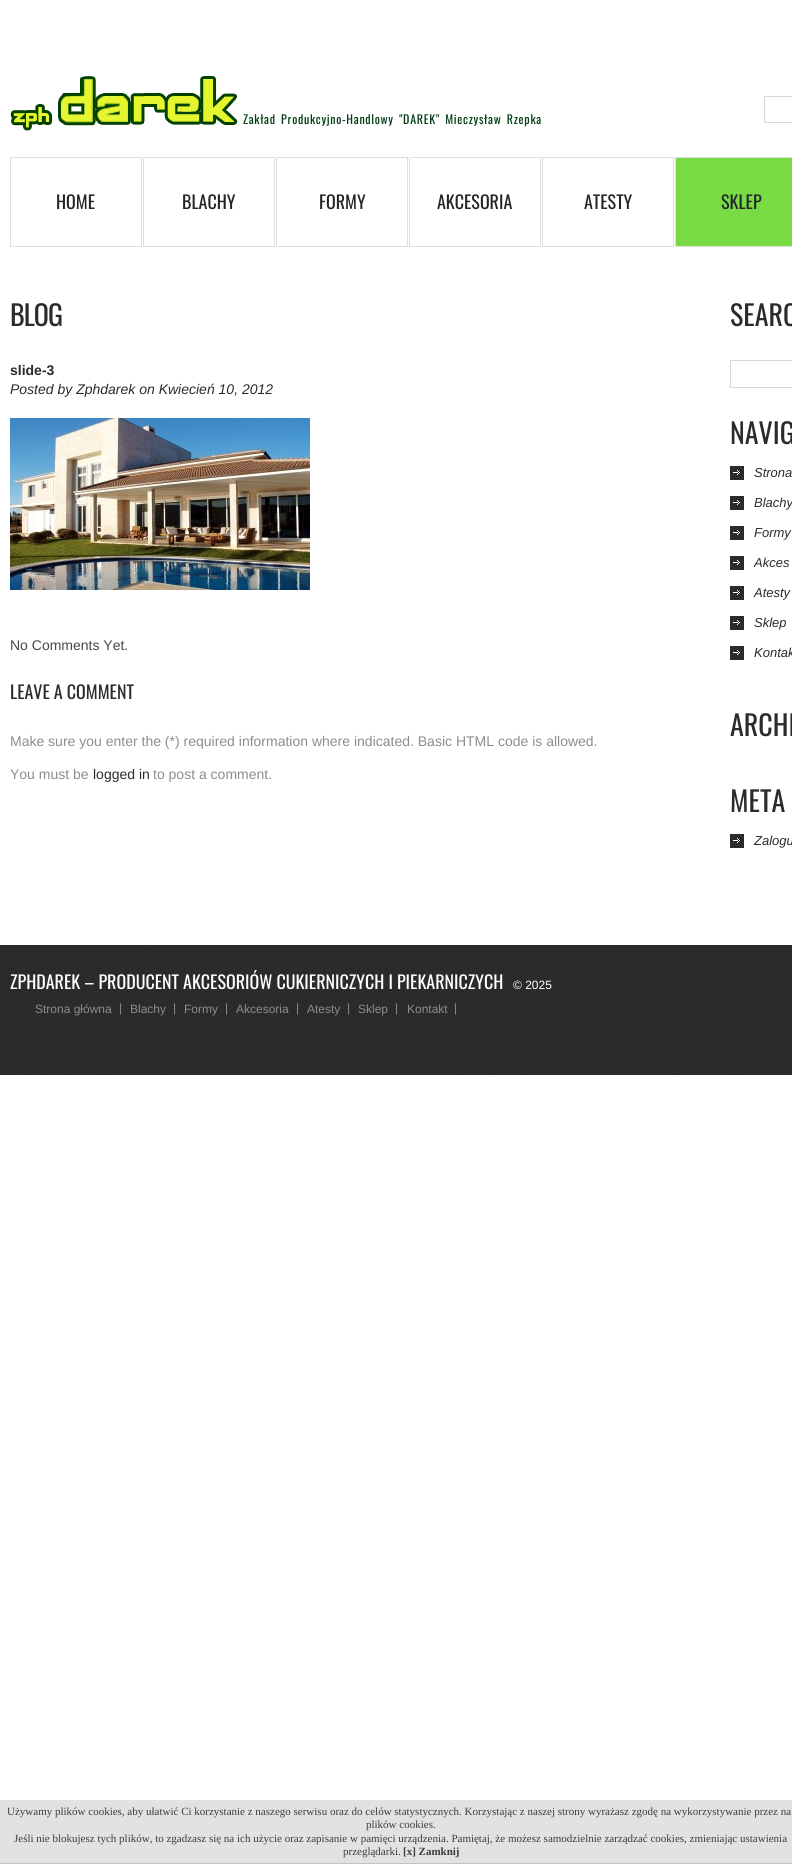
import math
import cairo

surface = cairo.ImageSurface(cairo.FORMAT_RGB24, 792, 1864)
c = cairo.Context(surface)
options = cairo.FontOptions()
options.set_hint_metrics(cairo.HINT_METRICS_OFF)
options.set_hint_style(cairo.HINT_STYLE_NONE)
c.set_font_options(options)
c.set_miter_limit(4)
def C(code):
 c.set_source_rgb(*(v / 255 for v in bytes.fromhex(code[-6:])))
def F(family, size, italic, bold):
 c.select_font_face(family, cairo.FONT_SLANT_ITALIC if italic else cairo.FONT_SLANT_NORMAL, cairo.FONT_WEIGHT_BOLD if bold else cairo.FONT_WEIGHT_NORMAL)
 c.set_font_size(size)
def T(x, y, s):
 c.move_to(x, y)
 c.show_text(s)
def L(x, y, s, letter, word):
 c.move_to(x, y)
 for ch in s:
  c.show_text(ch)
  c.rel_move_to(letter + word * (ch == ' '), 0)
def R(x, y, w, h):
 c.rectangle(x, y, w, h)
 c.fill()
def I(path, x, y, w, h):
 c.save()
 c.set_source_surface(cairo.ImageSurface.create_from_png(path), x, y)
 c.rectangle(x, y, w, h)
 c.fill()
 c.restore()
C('ffffff')
c.paint()
I('1.png',10,76,228,55)
F('Oswald',12,0,0)
C('003c16')
L(243,124,'Zakład Produkcyjno-Handlowy "DAREK" Mieczysław Rzepka',.7,2)
c.rectangle(764.5,96.5,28,26)
C('d7d7d9')
c.set_line_width(1)
c.stroke()
c.rectangle(10.5,157.5,131,89)
C('dfdfdf')
c.stroke()
F('Oswald',18,0,0)
C('232428')
T(56,209,'HOME')
c.rectangle(143.5,157.5,131,89)
C('dfdfdf')
c.stroke()
C('232428')
T(182,209,'BLACHY')
c.rectangle(276.5,157.5,131,89)
C('dfdfdf')
c.stroke()
C('232428')
T(319,209,'FORMY')
c.rectangle(409.5,157.5,131,89)
C('dfdfdf')
c.stroke()
C('232428')
T(437,209,'AKCESORIA')
c.rectangle(542.5,157.5,131,89)
C('dfdfdf')
c.stroke()
C('232428')
T(584,209,'ATESTY')
C('79db43')
c.rectangle(675.5,157.5,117,89)
c.fill_preserve()
C('dfdfdf')
c.stroke()
C('232428')
T(721,209,'SKLEP')
F('Oswald',28,0,0)
C('2b2b2b')
L(10,326,'BLOG',-1,0)
F('Liberation Sans',14,0,1)
T(10,375,'slide-3')
F('Liberation Sans',14,1,0)
T(10,394,'Posted by Zphdarek on Kwiecień 10, 2012')
I('2.png',10,418,300,172)
F('Liberation Sans',14,0,0)
C('474747')
T(10,650,'No Comments Yet.')
F('Oswald',18,0,0)
C('2b2b2b')
T(10,699,'LEAVE A COMMENT')
F('Liberation Sans',14,0,0)
C('8d8d8d')
T(10,746,'Make sure you enter the (*) required information where indicated. Basic HTML code is allowed.')
T(10,779,'You must be')
C('2b2b2b')
T(93,779,'logged in')
C('8d8d8d')
T(153,779,'to post a comment.')
F('Oswald',28,0,0)
C('2b2b2b')
T(730,326,'SEARC')
c.rectangle(730.5,360.5,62,27)
C('d7d7d9')
c.stroke()
C('2b2b2b')
T(730,444,'NAVIG')
I('3.png',730,466,14,14)
F('Liberation Sans',13,1,0)
T(754,477,'Strona')
I('3.png',730,496,14,14)
T(754,507,'Blachy')
I('3.png',730,526,14,14)
T(754,537,'Formy')
I('3.png',730,556,14,14)
T(754,567,'Akces')
I('3.png',730,586,14,14)
T(754,597,'Atesty')
I('3.png',730,616,14,14)
T(754,627,'Sklep')
I('3.png',730,646,14,14)
T(754,657,'Kontak')
F('Oswald',28,0,0)
T(730,736,'ARCHI')
T(730,812,'META')
I('3.png',730,834,14,14)
F('Liberation Sans',13,1,0)
T(754,845,'Zalogu')
I('4.png',0,945,792,130)
F('Oswald',18,0,0)
C('ffffff')
T(10,989,'ZPHDAREK – PRODUCENT AKCESORIÓW CUKIERNICZYCH I PIEKARNICZYCH')
F('Liberation Sans',12,0,0)
T(513,989,'© 2025')
C('8d8d8d')
T(35,1013,'Strona główna')
T(119,1012,'|')
T(130,1013,'Blachy')
T(173,1012,'|')
T(184,1013,'Formy')
T(225,1012,'|')
T(236,1013,'Akcesoria')
T(296,1012,'|')
T(307,1013,'Atesty')
T(347,1012,'|')
T(358,1013,'Sklep')
T(395,1012,'|')
T(407,1013,'Kontakt')
T(454,1012,'|')
C('e2e2e2')
R(0,1800,792,63)
C('c3c3c3')
R(0,1863,792,1)
F('Liberation Serif',11,0,0)
C('3c3c3c')
T(7,1815,'Używamy plików cookies, aby ułatwić Ci korzystanie z naszego serwisu oraz do celów statystycznych. Korzystając z naszej strony wyrażasz zgodę na wykorzystywanie przez na')
T(366,1828,'plików cookies.')
T(14,1842,'Jeśli nie blokujesz tych plików, to zgadzasz się na ich użycie oraz zapisanie w pamięci urządzenia. Pamiętaj, że możesz samodzielnie zarządzać cookies, zmieniając ustawienia')
T(343,1855,'przeglądarki.')
F('Liberation Serif',11,0,1)
T(403,1855,'[x] Zamknij')
surface.write_to_png('o.png')
